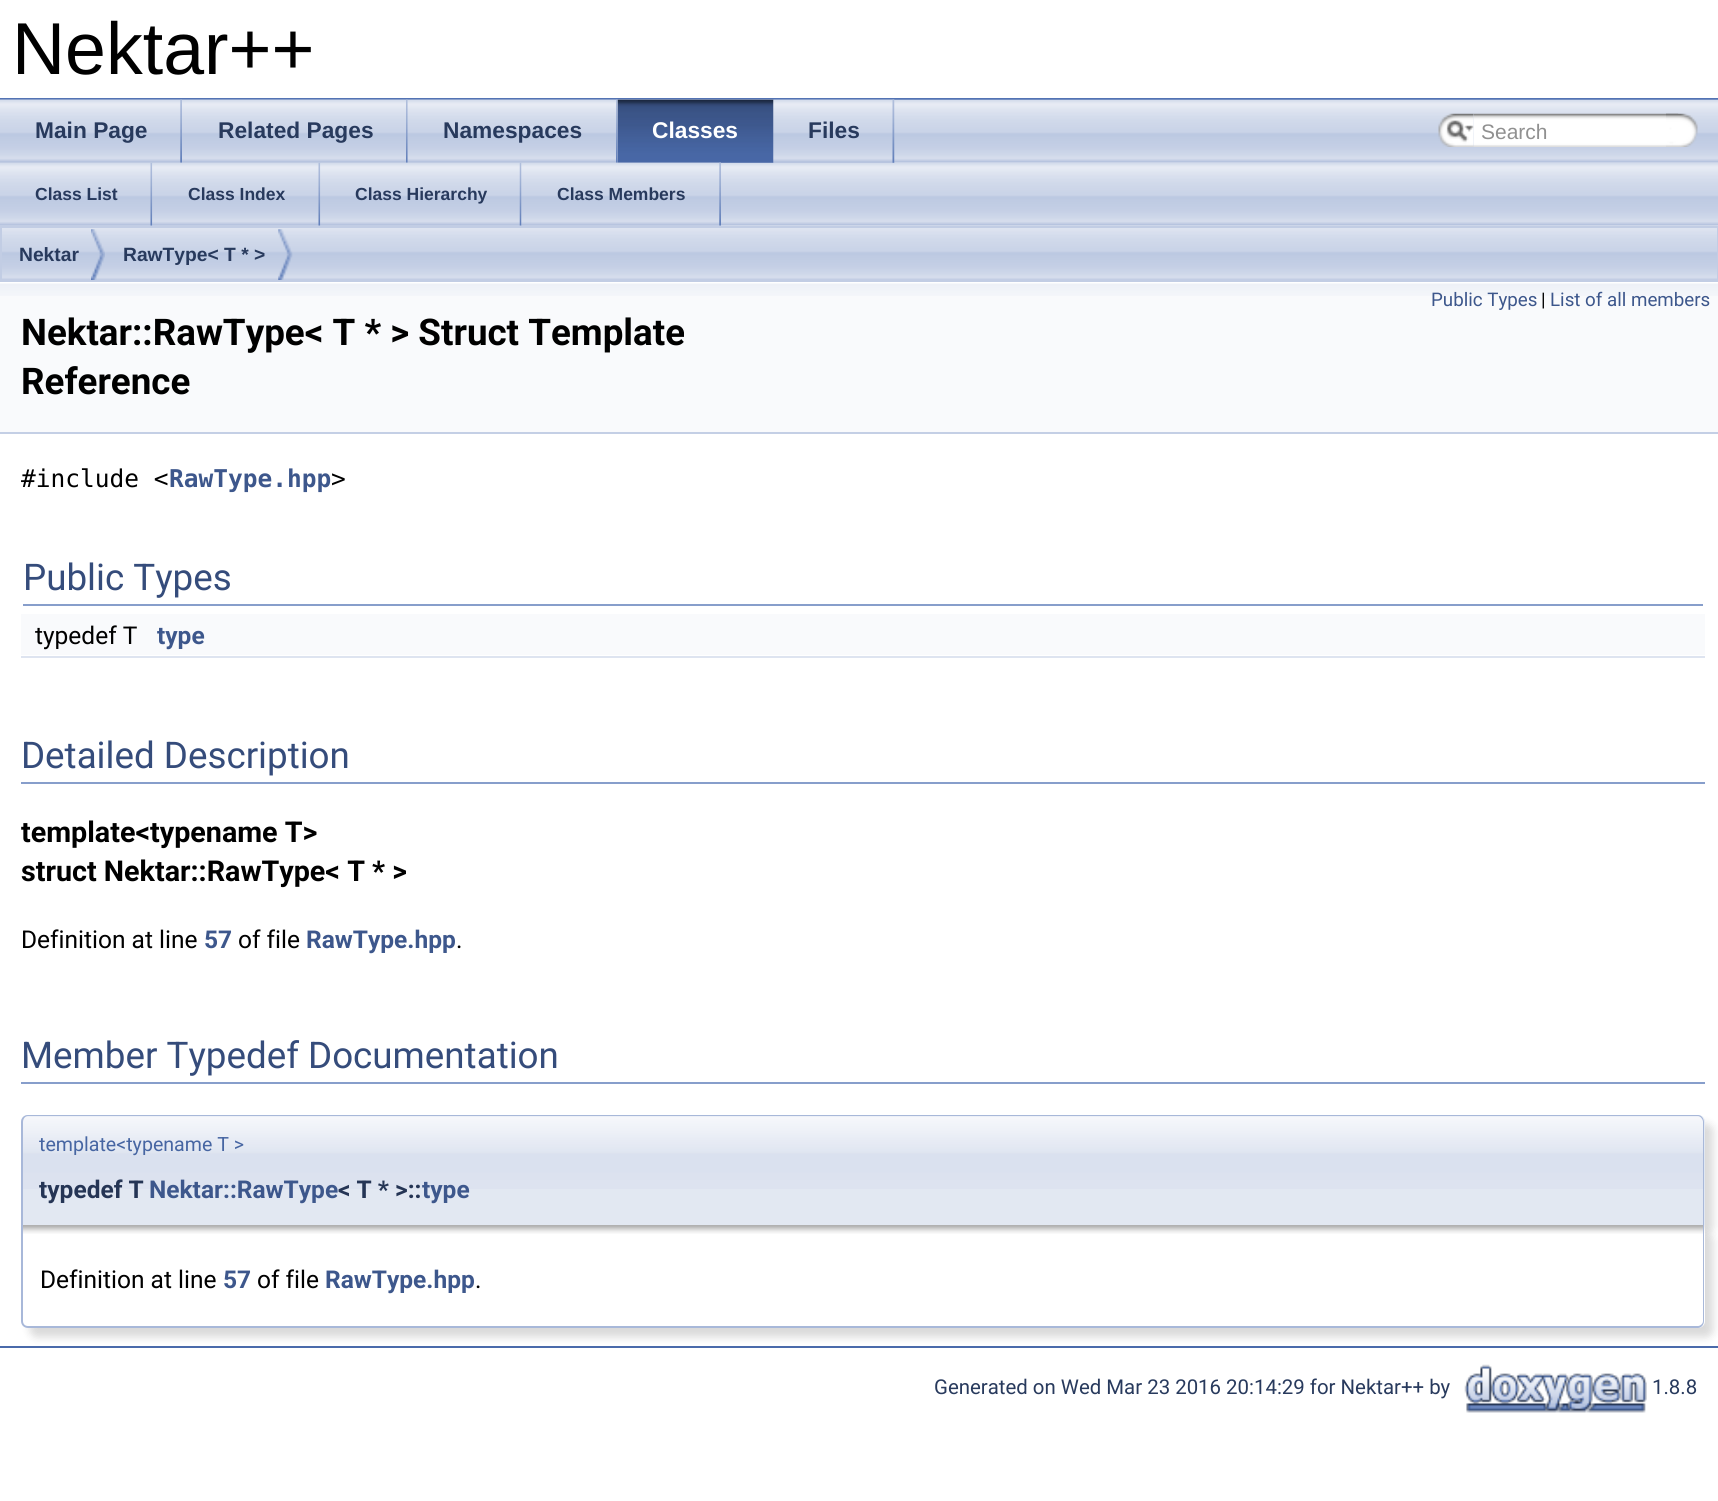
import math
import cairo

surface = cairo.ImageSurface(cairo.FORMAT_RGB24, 1718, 1501)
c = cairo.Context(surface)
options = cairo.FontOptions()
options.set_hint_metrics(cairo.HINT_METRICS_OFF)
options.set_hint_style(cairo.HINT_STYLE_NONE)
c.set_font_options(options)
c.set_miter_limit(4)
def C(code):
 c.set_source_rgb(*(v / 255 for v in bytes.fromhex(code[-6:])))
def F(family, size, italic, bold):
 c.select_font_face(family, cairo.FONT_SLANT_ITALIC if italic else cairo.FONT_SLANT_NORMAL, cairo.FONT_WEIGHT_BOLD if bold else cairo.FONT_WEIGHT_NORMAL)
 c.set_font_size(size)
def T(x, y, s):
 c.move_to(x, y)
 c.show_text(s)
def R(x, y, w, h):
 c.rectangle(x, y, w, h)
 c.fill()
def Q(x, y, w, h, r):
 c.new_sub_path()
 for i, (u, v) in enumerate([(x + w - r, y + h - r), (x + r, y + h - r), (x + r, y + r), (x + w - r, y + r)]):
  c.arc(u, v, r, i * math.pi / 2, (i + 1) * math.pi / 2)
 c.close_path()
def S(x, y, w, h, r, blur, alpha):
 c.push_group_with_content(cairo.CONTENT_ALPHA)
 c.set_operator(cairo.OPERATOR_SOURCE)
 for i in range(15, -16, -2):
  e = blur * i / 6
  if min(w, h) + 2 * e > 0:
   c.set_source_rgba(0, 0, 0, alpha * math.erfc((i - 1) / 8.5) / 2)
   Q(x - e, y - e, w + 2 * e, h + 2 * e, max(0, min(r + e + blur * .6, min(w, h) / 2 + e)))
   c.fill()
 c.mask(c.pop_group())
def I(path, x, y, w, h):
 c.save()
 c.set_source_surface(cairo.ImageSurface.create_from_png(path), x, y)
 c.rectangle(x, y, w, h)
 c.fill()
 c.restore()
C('ffffff')
c.paint()
C('5373b4')
R(0,98,1718,2)
F('Liberation Sans',73.5,0,0)
C('000000')
T(12,74,'Nektar++')
I('1.png',0,99,1718,64)
I('15.png',0,162,1718,64)
I('2.png',0,99,182,64)
I('3.png',180,99,2,64)
F('Liberation Sans',22.75,0,1)
C('283a5d')
T(35,138,'Main Page')
I('4.png',182,99,226,64)
I('5.png',406,99,2,64)
T(218,138,'Related Pages')
I('6.png',407,99,211,64)
I('5.png',616,99,2,64)
T(443,138,'Namespaces')
I('7.png',617,99,157,64)
I('8.png',617,99,157,64)
C('ffffff')
T(652,138,'Classes')
I('9.png',773,99,122,64)
I('10.png',892,99,3,64)
C('283a5d')
T(808,138,'Files')
I('11.png',1438,113,36,34)
I('12.png',1446,120,28,22)
I('13.png',1473,113,206,34)
F('Liberation Sans',21,0,0)
C('909090')
T(1481,139,'Search')
I('14.png',1666,113,32,34)
I('16.png',0,162,152,64)
I('17.png',150,162,3,64)
F('Liberation Sans',17.5,0,1)
C('283a5d')
T(35,200,'Class List')
I('18.png',152,162,168,64)
I('17.png',318,162,3,64)
T(188,200,'Class Index')
I('19.png',320,162,202,64)
I('20.png',519,162,3,64)
T(355,200,'Class Hierarchy')
I('21.png',521,162,200,64)
I('22.png',719,162,2,64)
T(557,200,'Class Members')
I('23.png',0,225,1718,55)
c.rectangle(1,227,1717,54)
C('c2cde4')
c.stroke()
I('24.png',91,229,14,51)
F('Liberation Sans',19.25,0,1)
C('283a5d')
T(19,261,'Nektar')
I('25.png',278,229,15,51)
T(123,261,'RawType< T * >')
C('f9fafc')
R(0,296,1718,136)
I('26.png',0,282,1718,14)
C('c4cfe5')
R(0,432,1718,2)
F('Roboto',18.75,0,0)
C('3d578c')
T(1431,306,'Public Types')
C('000000')
T(1541,306,'|')
C('3d578c')
T(1550,306,'List of all members')
F('Roboto',36.75,0,1)
C('000000')
T(21,345,'Nektar::RawType< T * > Struct Template')
T(21,394,'Reference')
F('DejaVu Sans Mono',24.5,0,0)
T(21,487,'#include <')
F('DejaVu Sans Mono',24.5,0,1)
C('3d578c')
T(169,487,'RawType.hpp')
F('DejaVu Sans Mono',24.5,0,0)
C('000000')
T(331,487,'>')
C('879ecb')
R(23,604,1680,2)
F('Roboto',36.75,0,0)
C('354c7b')
T(23,590,'Public Types')
C('f9fafc')
R(21,614,1684,41)
F('Roboto',24.5,0,0)
C('000000')
T(35,644,'typedef T')
F('Roboto',24.5,0,1)
C('3d578c')
T(157,644,'type')
C('dee4f0')
R(21,656,1684,2)
C('879ecb')
R(21,782,1684,2)
F('Roboto',36.75,0,0)
C('354c7b')
T(21,768,'Detailed Description')
F('Roboto',28.7,0,1)
C('000000')
T(21,842,'template<typename T>')
T(21,881,'struct Nektar::RawType< T * >')
F('Roboto',24.5,0,0)
T(21,948,'Definition at line')
F('Roboto',24.5,0,1)
C('3d578c')
T(204,948,'57')
F('Roboto',24.5,0,0)
C('000000')
T(238,948,'of file')
F('Roboto',24.5,0,1)
C('3d578c')
T(306,948,'RawType.hpp')
F('Roboto',24.5,0,0)
C('000000')
T(456,948,'.')
C('879ecb')
R(21,1082,1684,2)
F('Roboto',36.75,0,0)
C('354c7b')
T(21,1068,'Member Typedef Documentation')
C('000000')
S(30,1124,1683,110,7,4.5,.15)
C('e2e8f2')
c.new_path()
c.move_to(28,1115)
c.line_to(1698,1115)
c.curve_to(1702,1115,1705,1118,1705,1122)
c.line_to(1705,1225)
c.line_to(21,1225)
c.line_to(21,1122)
c.curve_to(21,1118,24,1115,28,1115)
c.close_path()
c.fill()
I('27.png',21,1116,1684,73)
C('a8b8d9')
c.set_fill_rule(cairo.FILL_RULE_EVEN_ODD)
c.new_path()
c.move_to(28,1115)
c.line_to(1698,1115)
c.curve_to(1701,1115,1704,1118,1704,1122)
c.line_to(1704,1225)
c.line_to(21,1225)
c.line_to(21,1122)
c.curve_to(21,1118,24,1115,28,1115)
c.close_path()
c.move_to(28,1116)
c.line_to(1698,1116)
c.curve_to(1700,1116,1703,1119,1703,1122)
c.line_to(1703,1225)
c.line_to(23,1225)
c.line_to(23,1122)
c.curve_to(23,1119,25,1116,28,1116)
c.close_path()
c.fill()
F('Roboto',19.6,0,0)
C('4665a2')
T(39,1151,'template<typename T >')
F('Roboto',24.5,0,1)
C('253555')
T(39,1198,'typedef T')
C('3d578c')
T(149,1198,'Nektar::RawType')
C('253555')
T(338,1198,'< T * >::')
C('3d578c')
T(422,1198,'type')
C('000000')
S(30,1234,1683,103,7,4.5,.15)
C('ffffff')
c.new_path()
c.move_to(21,1225)
c.line_to(1705,1225)
c.line_to(1705,1321)
c.curve_to(1705,1325,1702,1328,1698,1328)
c.line_to(28,1328)
c.curve_to(24,1328,21,1325,21,1321)
c.close_path()
c.fill()
I('28.png',23,1225,1682,9)
C('a8b8d9')
c.new_path()
c.move_to(21,1225)
c.line_to(1704,1225)
c.line_to(1704,1321)
c.curve_to(1704,1325,1701,1328,1698,1328)
c.line_to(28,1328)
c.curve_to(24,1328,21,1325,21,1321)
c.close_path()
c.move_to(23,1225)
c.line_to(1703,1225)
c.line_to(1703,1321)
c.curve_to(1703,1324,1700,1326,1698,1326)
c.line_to(28,1326)
c.curve_to(25,1326,23,1324,23,1321)
c.close_path()
c.fill()
F('Roboto',24.5,0,0)
C('000000')
T(40,1288,'Definition at line')
F('Roboto',24.5,0,1)
C('3d578c')
T(223,1288,'57')
F('Roboto',24.5,0,0)
C('000000')
T(257,1288,'of file')
F('Roboto',24.5,0,1)
C('3d578c')
T(325,1288,'RawType.hpp')
F('Roboto',24.5,0,0)
C('000000')
T(475,1288,'.')
C('4a6aaa')
R(0,1346,1718,2)
F('Roboto',20.4,0,0)
C('283a5d')
T(934,1394,'Generated on Wed Mar 23 2016 20:14:29 for Nektar++ by')
I('29.png',1464,1364,183,49)
T(1652,1394,'1.8.8')
surface.write_to_png('o.png')
